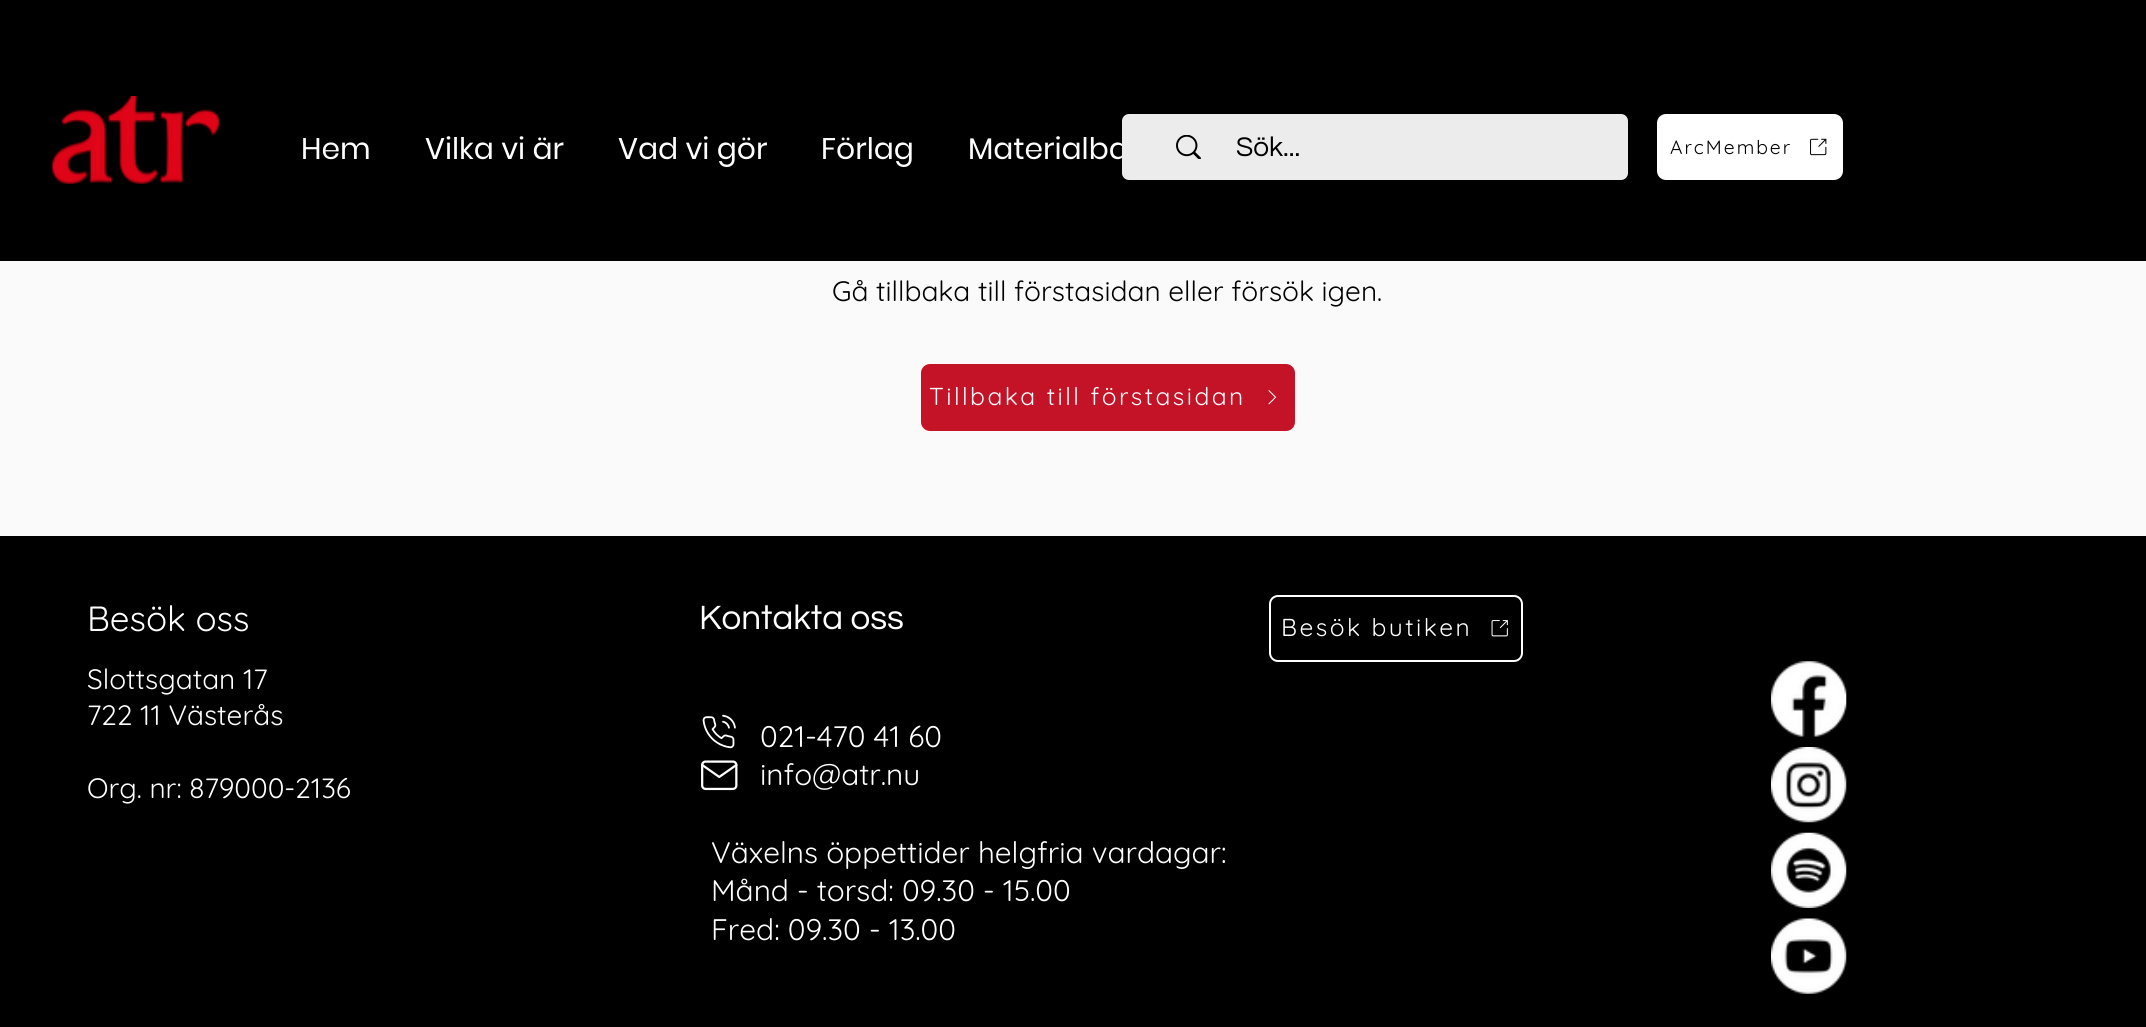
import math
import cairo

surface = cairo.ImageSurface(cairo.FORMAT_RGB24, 2146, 1027)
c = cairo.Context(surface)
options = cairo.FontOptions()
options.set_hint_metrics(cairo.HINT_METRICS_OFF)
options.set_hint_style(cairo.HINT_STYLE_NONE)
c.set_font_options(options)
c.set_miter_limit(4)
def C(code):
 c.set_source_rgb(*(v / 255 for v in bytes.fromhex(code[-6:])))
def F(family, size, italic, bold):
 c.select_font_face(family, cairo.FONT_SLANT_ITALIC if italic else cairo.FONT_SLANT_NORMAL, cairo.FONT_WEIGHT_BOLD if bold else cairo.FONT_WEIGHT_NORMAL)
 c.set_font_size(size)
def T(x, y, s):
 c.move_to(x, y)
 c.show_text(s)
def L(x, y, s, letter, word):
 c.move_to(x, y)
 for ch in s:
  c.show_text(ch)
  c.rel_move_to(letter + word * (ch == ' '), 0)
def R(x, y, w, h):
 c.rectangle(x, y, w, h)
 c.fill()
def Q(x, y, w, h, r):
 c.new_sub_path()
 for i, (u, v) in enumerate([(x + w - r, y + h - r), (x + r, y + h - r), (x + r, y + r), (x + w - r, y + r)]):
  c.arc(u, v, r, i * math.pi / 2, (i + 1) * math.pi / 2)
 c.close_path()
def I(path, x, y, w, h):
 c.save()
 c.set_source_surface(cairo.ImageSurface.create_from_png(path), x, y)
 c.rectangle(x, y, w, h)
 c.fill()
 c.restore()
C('fafafa')
c.paint()
C('000000')
R(0,0,2146,261)
I('1.png',52,96,167,88)
F('Poppins',29.75,0,0)
C('ffffff')
T(301,159,'Hem')
T(425,159,'Vilka vi är')
T(618,159,'Vad vi gör')
T(821,159,'Förlag')
T(968,159,'Materialba')
C('edecec')
Q(1122,114,506,66,7)
c.fill()
I('2.png',1176,135,25,24)
F('Questrial',28,0,0)
C('000000')
T(1236,156,'Sök...')
C('ffffff')
Q(1657,114,186,66,9)
c.fill()
F('Quicksand',19.25,0,0)
C('000000')
L(1670,154,'ArcMember',2,0)
I('3.png',1810,138,17,18)
F('Quicksand',28,0,0)
T(832,301,'Gå tillbaka till förstasidan eller försök igen.')
C('c41327')
Q(921,364,374,67,9)
c.fill()
F('Quicksand',24.5,0,0)
C('ffffff')
L(929,405,'Tillbaka till förstasidan',2.45,0)
I('4.png',1268,390,9,15)
C('000000')
R(0,536,2146,491)
F('Quicksand',35,0,0)
C('ffffff')
T(87,631,'Besök oss')
F('Quicksand',28,0,0)
T(87,689,'Slottsgatan 17')
T(87,725,'722 11 Västerås')
T(87,798,'Org. nr: 879000-2136')
F('Questrial',35,0,0)
T(699,629,'Kontakta oss')
Q(1270,596,252,65,8)
c.stroke()
F('Quicksand',24.5,0,0)
L(1281,636,'Besök butiken',2.45,0)
I('5.png',1491,620,17,17)
I('6.png',702,714,34,35)
I('7.png',1771,661,76,76)
I('8.png',1771,747,76,76)
I('9.png',1771,832,76,76)
I('10.png',1771,918,76,76)
F('Quicksand',29.75,0,0)
T(760,747,'021-470 41 60')
T(760,785,'info@atr.nu')
T(711,863,'Växelns öppettider helgfria vardagar:')
T(711,901,'Månd - torsd: 09.30 - 15.00')
T(711,940,'Fred: 09.30 - 13.00')
I('11.png',701,760,37,31)
surface.write_to_png('o.png')
